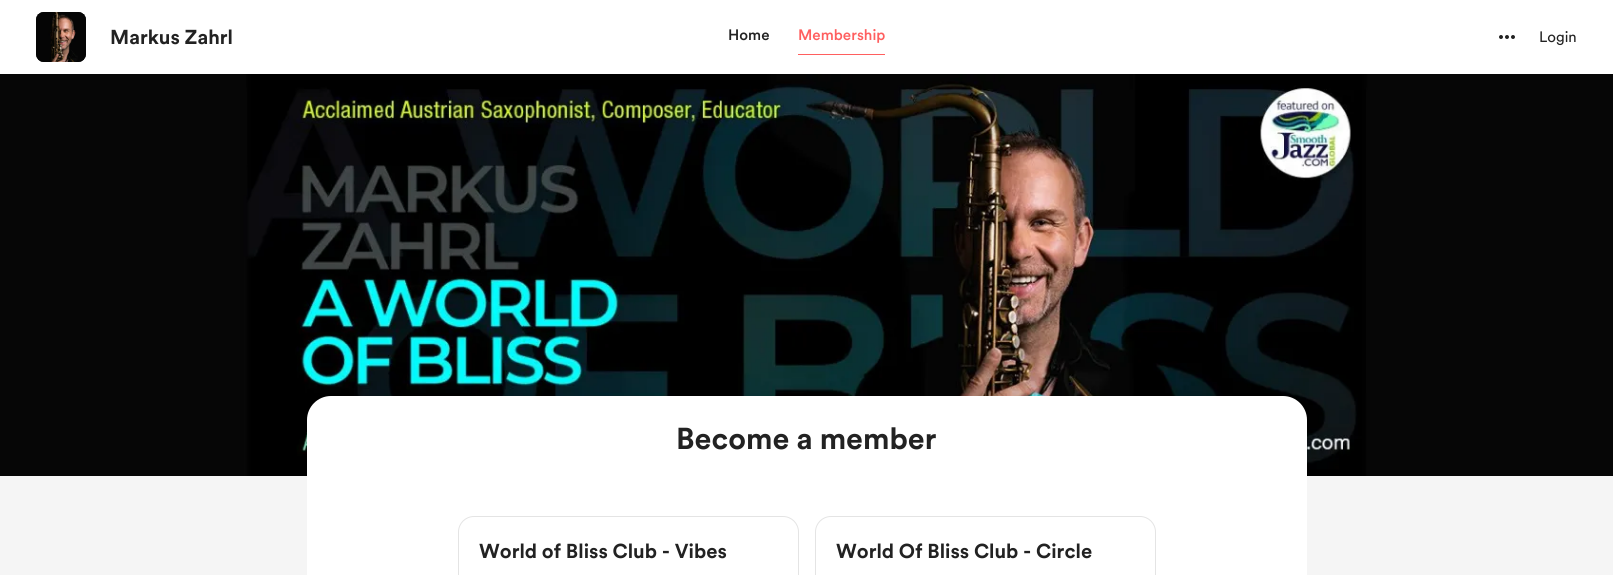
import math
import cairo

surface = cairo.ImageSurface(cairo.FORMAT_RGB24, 1613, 575)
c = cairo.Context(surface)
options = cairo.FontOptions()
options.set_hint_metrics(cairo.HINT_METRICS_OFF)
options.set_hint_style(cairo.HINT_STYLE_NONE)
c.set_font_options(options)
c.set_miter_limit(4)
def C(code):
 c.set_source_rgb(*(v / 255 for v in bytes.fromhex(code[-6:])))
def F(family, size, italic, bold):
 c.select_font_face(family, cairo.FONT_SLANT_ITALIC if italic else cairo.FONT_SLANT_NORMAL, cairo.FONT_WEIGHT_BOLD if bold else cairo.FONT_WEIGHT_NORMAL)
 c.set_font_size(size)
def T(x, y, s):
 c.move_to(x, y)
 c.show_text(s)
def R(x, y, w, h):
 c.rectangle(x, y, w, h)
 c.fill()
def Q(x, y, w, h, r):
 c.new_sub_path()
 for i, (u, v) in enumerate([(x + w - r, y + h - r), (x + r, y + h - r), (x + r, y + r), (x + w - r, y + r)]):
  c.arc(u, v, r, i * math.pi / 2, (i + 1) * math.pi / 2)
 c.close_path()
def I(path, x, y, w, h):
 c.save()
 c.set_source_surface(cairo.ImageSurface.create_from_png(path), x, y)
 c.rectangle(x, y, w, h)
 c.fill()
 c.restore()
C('ffffff')
c.paint()
I('1.png',36,12,50,50)
I('2.png',36,12,50,50)
F('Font',20,0,1)
C('222222')
T(110,44,'Markus Zahrl')
F('Font Medium',15,0,0)
T(728,40,'Home')
C('ff5f5f')
T(798,40,'Membership')
R(798,54,87,1)
I('3.png',1499,35,16,4)
F('Font',15,0,0)
C('222222')
T(1539,42,'Login')
C('f5f5f5')
R(0,476,1613,99)
I('4.png',0,74,1613,402)
C('ffffff')
Q(307,396,1000,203,24)
c.fill()
F('Font',30,0,1)
C('222222')
T(676,449,'Become a member')
Q(458.5,516.5,340,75,15.5)
C('e4e4e4')
c.set_line_width(1)
c.stroke()
F('Font',20,0,1)
C('222222')
T(479,558,'World of Bliss Club - Vibes')
Q(815.5,516.5,340,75,15.5)
C('e4e4e4')
c.stroke()
C('222222')
T(836,558,'World Of Bliss Club - Circle')
surface.write_to_png('o.png')
